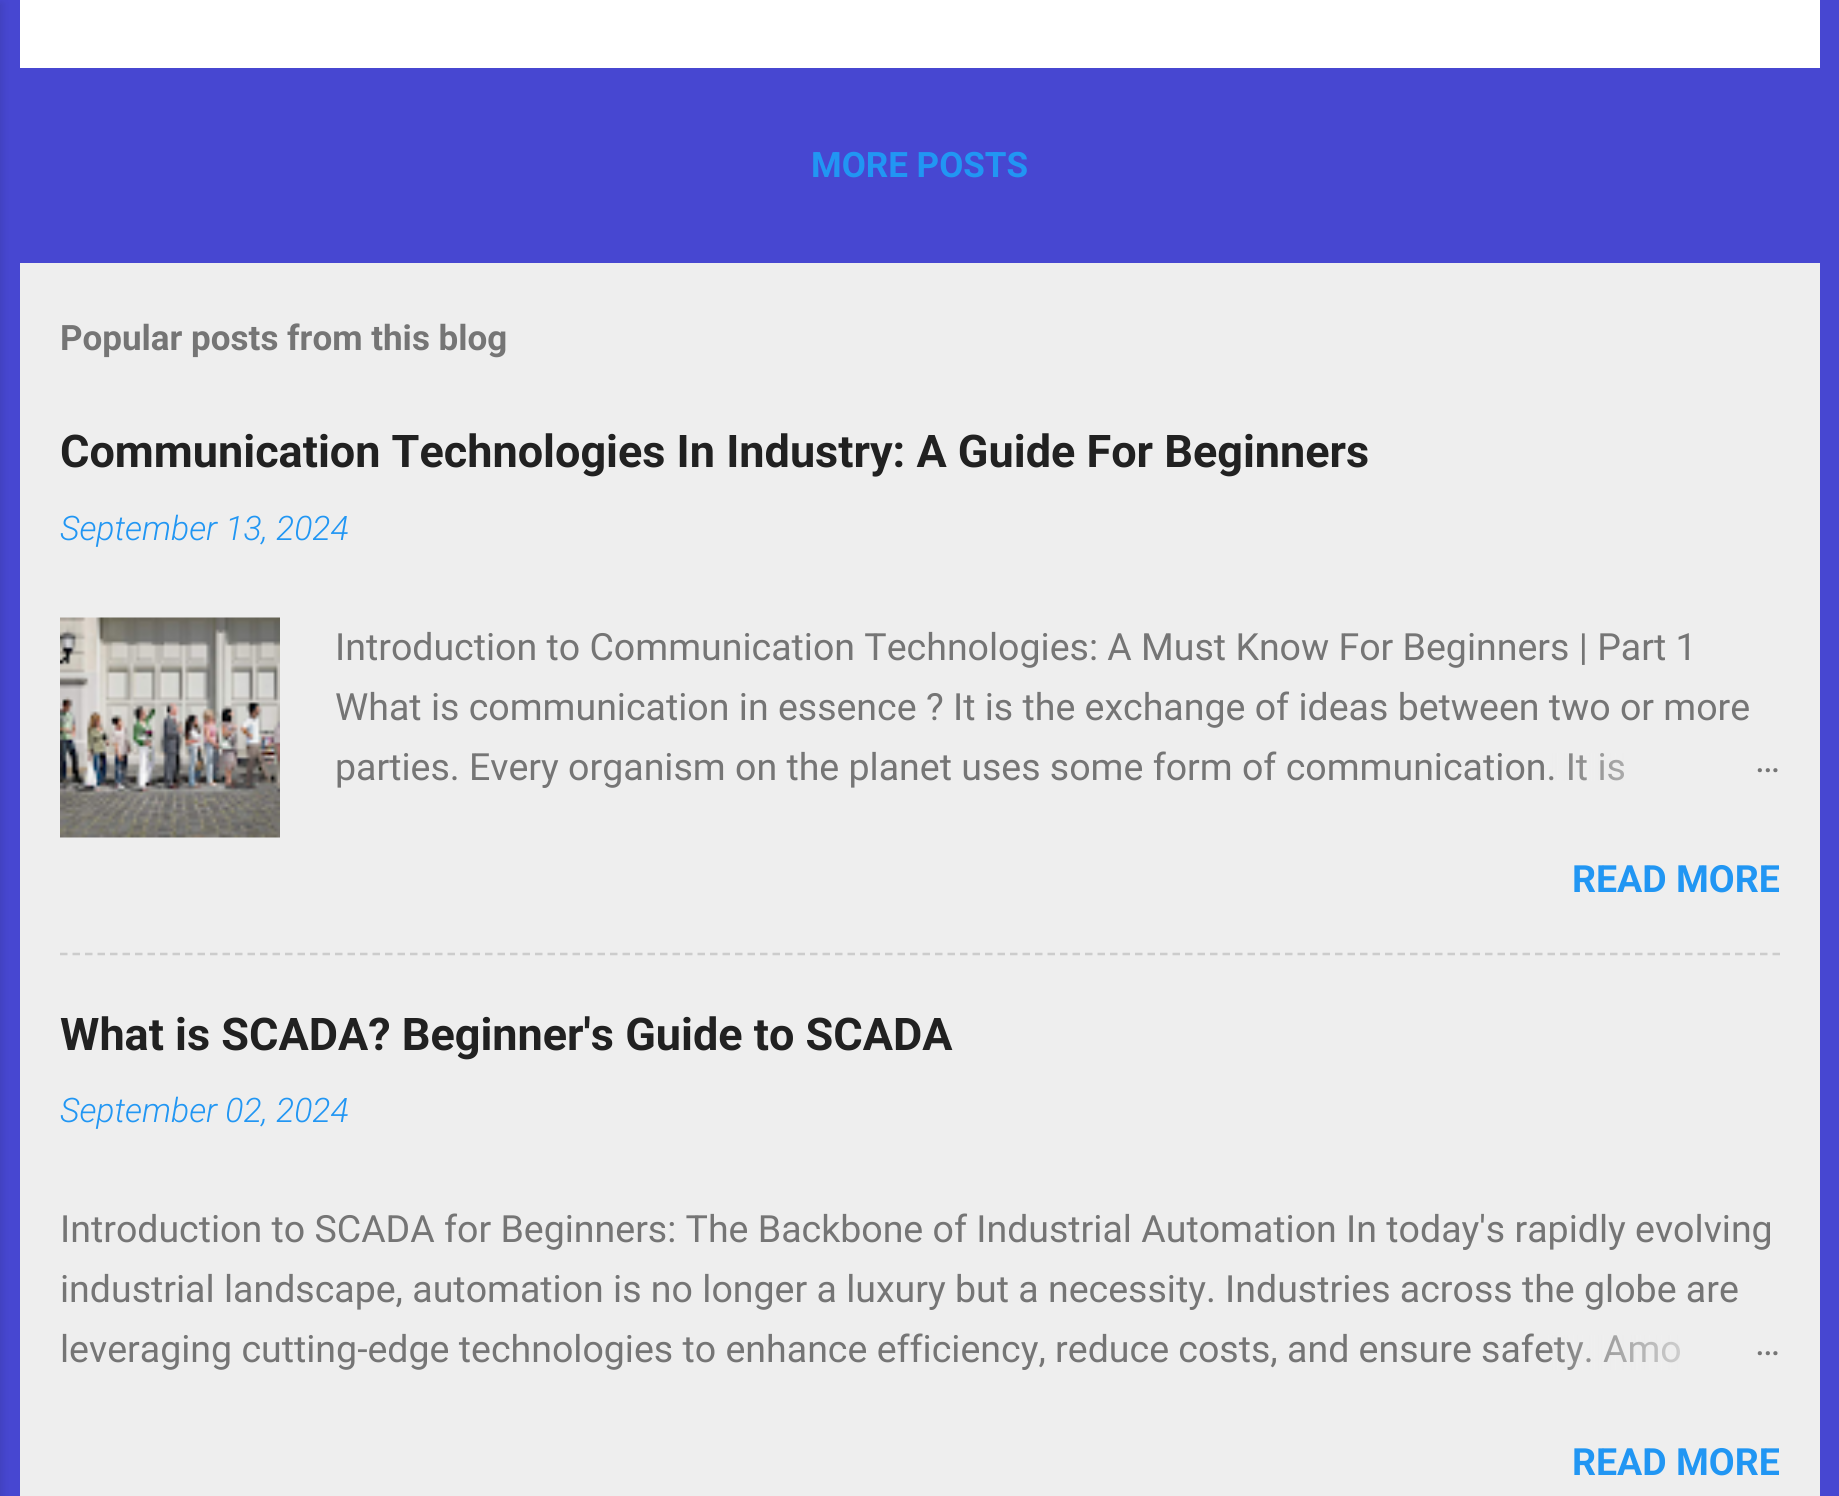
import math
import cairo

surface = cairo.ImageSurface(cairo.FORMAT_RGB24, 1839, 1496)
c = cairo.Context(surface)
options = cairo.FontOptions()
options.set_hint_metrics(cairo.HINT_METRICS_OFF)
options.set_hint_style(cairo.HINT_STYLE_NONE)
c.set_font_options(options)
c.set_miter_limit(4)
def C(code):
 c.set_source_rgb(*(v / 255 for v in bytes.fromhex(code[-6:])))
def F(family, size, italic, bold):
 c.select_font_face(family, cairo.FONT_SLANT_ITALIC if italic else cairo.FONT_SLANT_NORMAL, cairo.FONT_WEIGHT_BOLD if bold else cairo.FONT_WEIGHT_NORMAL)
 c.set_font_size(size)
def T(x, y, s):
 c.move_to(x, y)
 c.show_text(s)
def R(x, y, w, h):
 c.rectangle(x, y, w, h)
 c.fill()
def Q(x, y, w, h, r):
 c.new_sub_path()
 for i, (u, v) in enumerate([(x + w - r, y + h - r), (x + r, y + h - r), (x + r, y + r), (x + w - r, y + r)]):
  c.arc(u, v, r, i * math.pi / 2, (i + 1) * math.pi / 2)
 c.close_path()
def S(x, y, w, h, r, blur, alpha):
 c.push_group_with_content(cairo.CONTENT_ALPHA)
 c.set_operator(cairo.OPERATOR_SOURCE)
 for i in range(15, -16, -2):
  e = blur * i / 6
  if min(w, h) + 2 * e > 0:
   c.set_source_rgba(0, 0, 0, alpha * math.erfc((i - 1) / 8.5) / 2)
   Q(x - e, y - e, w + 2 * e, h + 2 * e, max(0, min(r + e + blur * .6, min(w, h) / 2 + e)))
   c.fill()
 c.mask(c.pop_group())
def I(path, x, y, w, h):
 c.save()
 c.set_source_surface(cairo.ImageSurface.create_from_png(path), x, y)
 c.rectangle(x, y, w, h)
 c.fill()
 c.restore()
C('4747d1')
c.paint()
C('000000')
S(-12,3,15,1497,0,4,.1)
C('ffffff')
R(20,0,1800,68)
F('Roboto',35,0,1)
C('2196f3')
T(811,177,'MORE POSTS')
C('eeeeee')
R(20,263,1800,1233)
C('757575')
T(60,350,'Popular posts from this blog')
F('Roboto',45,0,1)
C('212121')
T(60,467,'Communication Technologies In Industry: A Guide For Beginners')
F('Roboto Light',33.75,1,0)
C('2196f3')
T(60,540,'September 13, 2024')
I('1.png',60,617,220,221)
F('Roboto',37.5,0,0)
C('757575')
T(335,660,'Introduction to Communication Technologies: A Must Know For Beginners | Part 1')
T(335,720,'What is communication in essence ? It is the exchange of ideas between two or more')
T(335,780,'parties. Every organism on the planet uses some form of communication. It is')
gradient = cairo.LinearGradient(1780,768,1540,768)
gradient.add_color_stop_rgba(0,0.933,0.933,0.933,1)
gradient.add_color_stop_rgba(.2,0.933,0.933,0.933,1)
gradient.add_color_stop_rgba(1,0.933,0.933,0.933,0)
c.set_source(gradient)
R(1549,753,76,28)
C('757575')
T(1755,772,'…')
F('Roboto',37.5,0,1)
C('2196f3')
T(1572,892,'READ MORE')
c.new_path()
c.move_to(60,954)
c.line_to(1780,954)
C('cccccc')
c.set_line_width(2.5)
c.set_dash([7.5,5])
c.stroke()
F('Roboto',45,0,1)
C('212121')
T(60,1050,'What is SCADA? Beginner\'s Guide to SCADA')
F('Roboto Light',33.75,1,0)
C('2196f3')
T(60,1122,'September 02, 2024')
F('Roboto',37.5,0,0)
C('757575')
T(60,1242,'Introduction to SCADA for Beginners: The Backbone of Industrial Automation In today\'s rapidly evolving')
T(60,1302,'industrial landscape, automation is no longer a luxury but a necessity. Industries across the globe are')
T(60,1362,'leveraging cutting-edge technologies to enhance efficiency, reduce costs, and ensure safety. Amo')
gradient = cairo.LinearGradient(1780,1350,1540,1350)
gradient.add_color_stop_rgba(0,0.933,0.933,0.933,1)
gradient.add_color_stop_rgba(.2,0.933,0.933,0.933,1)
gradient.add_color_stop_rgba(1,0.933,0.933,0.933,0)
c.set_source(gradient)
R(1544,1335,136,35)
C('757575')
T(1755,1355,'…')
F('Roboto',37.5,0,1)
C('2196f3')
T(1572,1475,'READ MORE')
surface.write_to_png('o.png')
